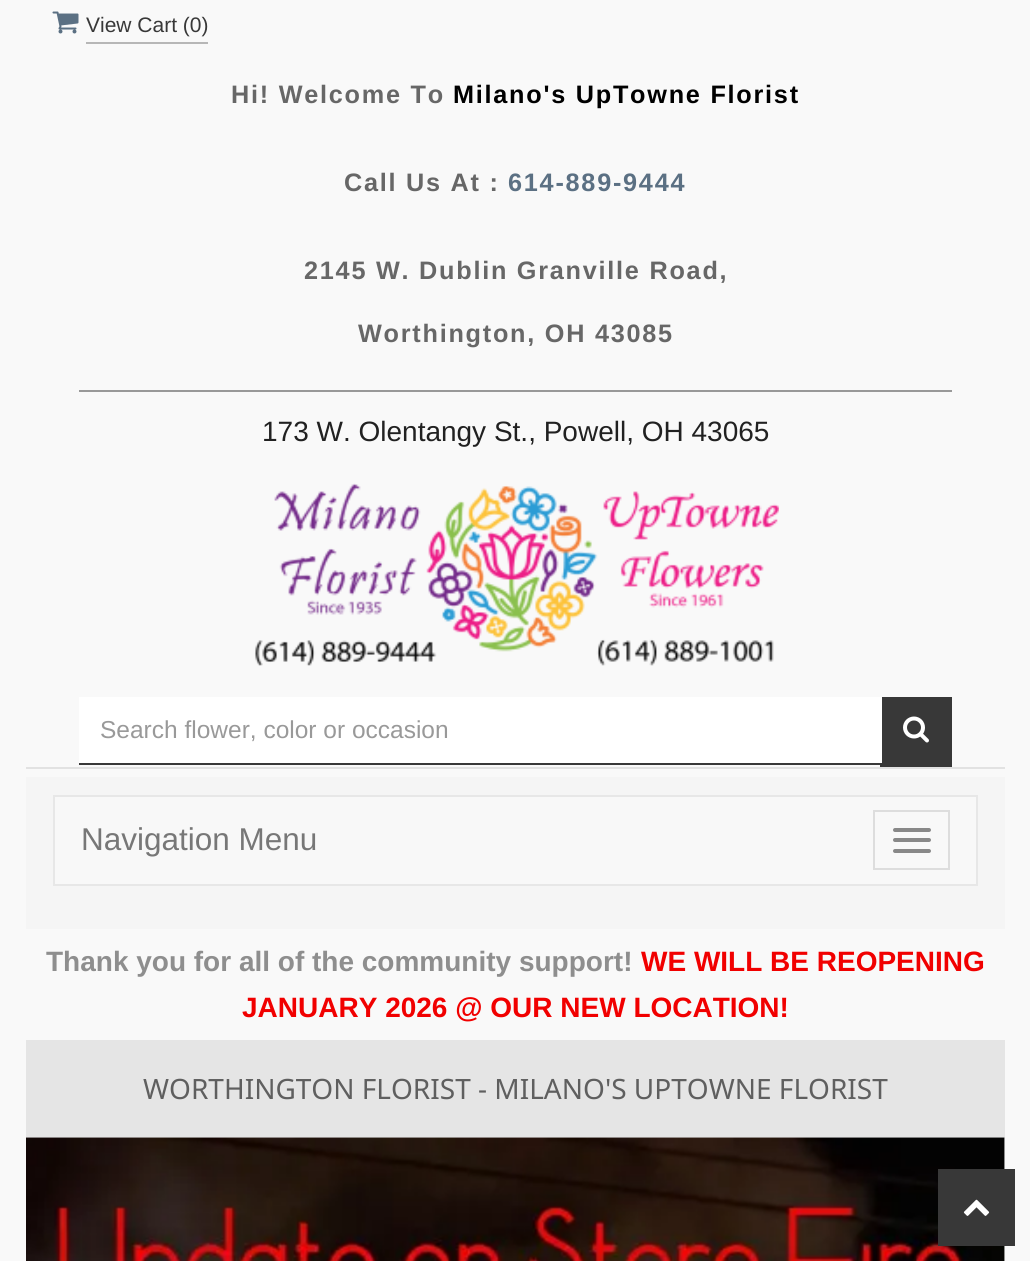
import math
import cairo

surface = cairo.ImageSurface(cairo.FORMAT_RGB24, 1030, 1261)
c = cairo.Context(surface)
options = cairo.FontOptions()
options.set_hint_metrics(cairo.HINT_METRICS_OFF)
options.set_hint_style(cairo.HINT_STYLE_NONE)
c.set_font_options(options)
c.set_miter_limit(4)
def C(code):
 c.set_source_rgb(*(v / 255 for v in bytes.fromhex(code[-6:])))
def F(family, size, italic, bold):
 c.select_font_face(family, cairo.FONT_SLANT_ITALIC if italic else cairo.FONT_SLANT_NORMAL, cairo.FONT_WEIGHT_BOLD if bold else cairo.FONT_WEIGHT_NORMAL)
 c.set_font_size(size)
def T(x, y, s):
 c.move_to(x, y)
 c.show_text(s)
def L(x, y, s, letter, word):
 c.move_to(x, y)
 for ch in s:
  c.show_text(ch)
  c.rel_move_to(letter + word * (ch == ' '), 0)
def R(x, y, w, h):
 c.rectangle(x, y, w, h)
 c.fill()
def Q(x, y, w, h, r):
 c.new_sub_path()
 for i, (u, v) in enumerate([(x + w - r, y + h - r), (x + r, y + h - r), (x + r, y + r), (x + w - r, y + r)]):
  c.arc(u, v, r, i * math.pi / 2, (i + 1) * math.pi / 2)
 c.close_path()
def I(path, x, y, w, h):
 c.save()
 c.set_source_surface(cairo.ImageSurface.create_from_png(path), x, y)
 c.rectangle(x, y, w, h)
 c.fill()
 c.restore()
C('f9f9f9')
c.paint()
C('e2e2e2')
R(26,767,979,2)
I('1.png',52,11,27,23)
F('Liberation Sans',21,0,0)
C('383838')
T(86,32,'View Cart (0)')
C('b7b7b7')
R(86,42,122,2)
F('Liberation Sans',25.25,0,1)
C('676767')
L(231,103,'Hi! Welcome To',1.75,0)
C('000000')
L(453,103,'Milano\'s UpTowne Florist',1.75,0)
C('676767')
L(344,191,'Call Us At :',1.75,0)
C('5b7083')
L(508,191,'614-889-9444',1.75,0)
C('676767')
L(304,279,'2145 W. Dublin Granville Road,',1.75,0)
L(358,342,'Worthington, OH 43085',1.75,0)
C('999999')
R(79,390,873,2)
F('Liberation Sans',28,0,0)
C('212121')
T(262,441,'173 W. Olentangy St., Powell, OH 43065')
I('2.png',255,483,524,183)
C('383838')
R(880,697,72,70)
C('ffffff')
R(79,697,803,66)
C('383838')
R(79,763,803,2)
F('Liberation Sans',24.5,0,0)
C('999999')
T(100,738,'Search flower, color or occasion')
I('3.png',903,716,26,27)
C('f5f5f5')
R(26,777,979,152)
C('f8f8f8')
c.rectangle(54,796,923,89)
c.fill_preserve()
C('e7e7e7')
c.stroke()
F('Liberation Sans',31.5,0,0)
C('777777')
T(81,850,'Navigation Menu')
c.rectangle(874,811,75,58)
C('dddddd')
c.stroke()
C('888888')
Q(893,828,38,4,2)
c.fill()
Q(893,838,38,4,2)
c.fill()
Q(893,849,38,4,2)
c.fill()
F('Liberation Sans',28,0,1)
C('8e8e8e')
T(46,971,'Thank you for all of the community support!')
C('f10000')
T(641,971,'WE WILL BE REOPENING')
T(242,1017,'JANUARY 2026 @ OUR NEW LOCATION!')
C('e5e5e5')
R(26,1040,979,98)
F('Noto Sans',28,0,0)
C('5f5f5f')
T(143,1099,'WORTHINGTON FLORIST - MILANO\'S UPTOWNE FLORIST')
I('4.png',26,1137,979,124)
C('383838')
R(938,1169,77,77)
I('5.png',963,1199,27,17)
surface.write_to_png('o.png')
